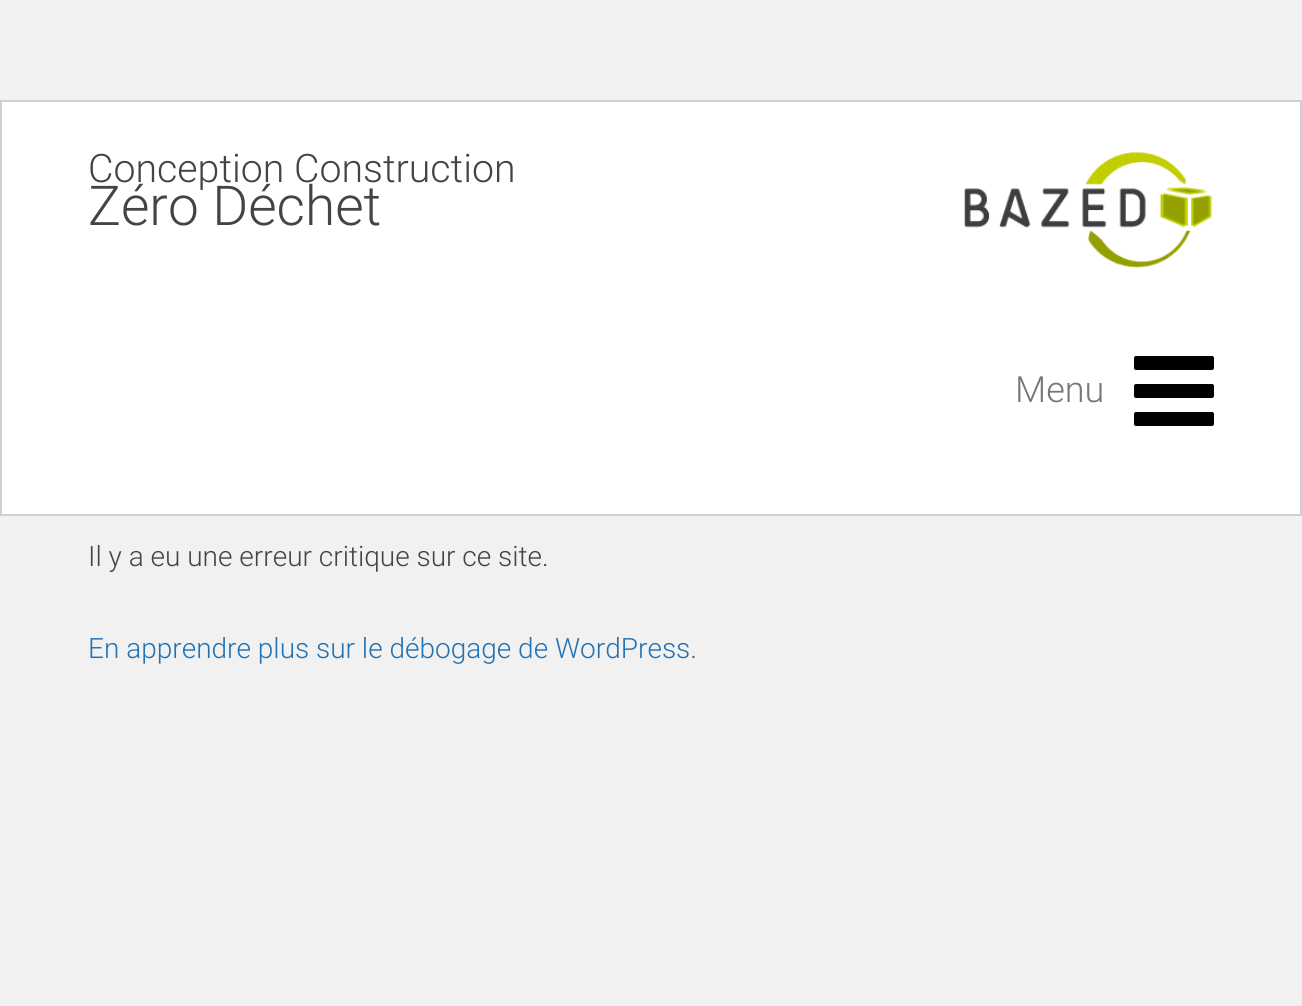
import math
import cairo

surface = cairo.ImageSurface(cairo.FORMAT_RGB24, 1302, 1006)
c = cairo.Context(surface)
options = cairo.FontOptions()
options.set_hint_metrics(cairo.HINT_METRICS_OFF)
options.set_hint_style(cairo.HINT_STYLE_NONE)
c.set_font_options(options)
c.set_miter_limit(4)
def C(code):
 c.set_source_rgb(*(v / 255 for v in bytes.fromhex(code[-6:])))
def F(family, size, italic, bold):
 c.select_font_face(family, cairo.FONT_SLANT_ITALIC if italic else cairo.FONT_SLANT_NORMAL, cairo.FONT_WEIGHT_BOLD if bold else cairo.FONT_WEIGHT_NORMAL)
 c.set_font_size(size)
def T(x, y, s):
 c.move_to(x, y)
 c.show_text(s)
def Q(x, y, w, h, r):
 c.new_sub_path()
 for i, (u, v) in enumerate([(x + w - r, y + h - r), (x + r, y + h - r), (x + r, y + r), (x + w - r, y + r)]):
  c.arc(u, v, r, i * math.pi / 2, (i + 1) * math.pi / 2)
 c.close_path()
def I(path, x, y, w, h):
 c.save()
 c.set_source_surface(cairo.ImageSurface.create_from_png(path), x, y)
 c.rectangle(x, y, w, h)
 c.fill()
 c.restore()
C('f1f1f1')
c.paint()
C('ffffff')
c.rectangle(1,101,1300,414)
c.fill_preserve()
C('ccd0d4')
c.stroke()
F('Roboto Light',39.25,0,0)
C('444444')
T(88,182,'Conception Construction')
F('Roboto Light',55,0,0)
T(88,225,'Zéro Déchet')
I('1.png',964,152,248,116)
F('Roboto Light',36,0,0)
C('777777')
T(1015,402,'Menu')
C('000000')
Q(1134,356,80,14,2)
c.fill()
Q(1134,384,80,14,2)
c.fill()
Q(1134,412,80,14,2)
c.fill()
F('Roboto Light',28,0,0)
C('444444')
T(88,566,'Il y a eu une erreur critique sur ce site.')
C('2271b1')
T(88,658,'En apprendre plus sur le débogage de WordPress.')
surface.write_to_png('o.png')
